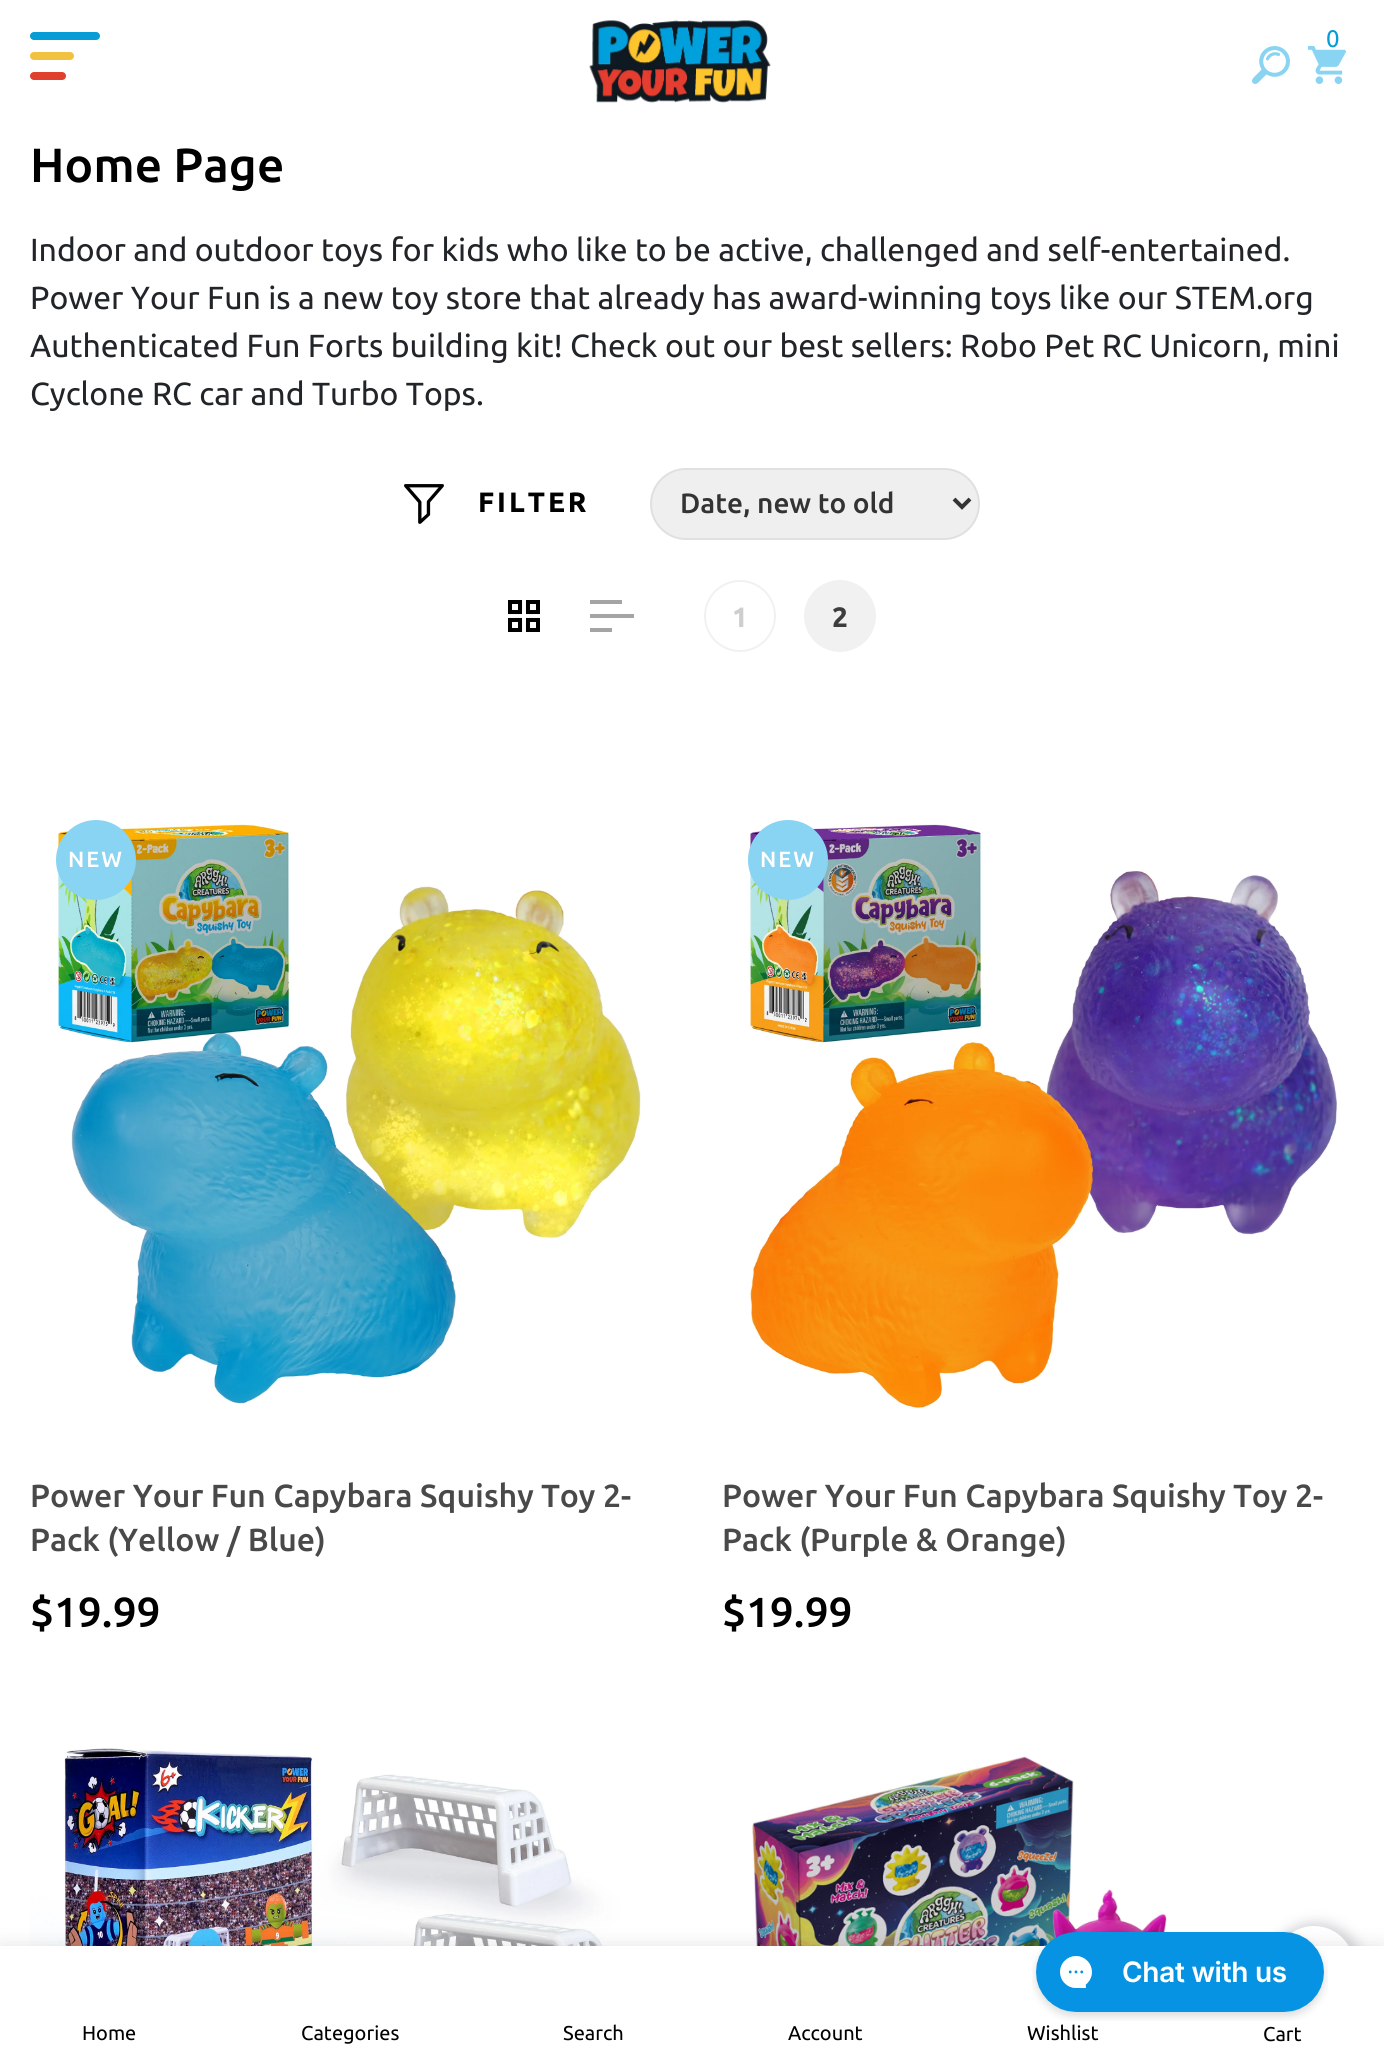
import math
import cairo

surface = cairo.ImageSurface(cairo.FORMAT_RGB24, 1384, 2066)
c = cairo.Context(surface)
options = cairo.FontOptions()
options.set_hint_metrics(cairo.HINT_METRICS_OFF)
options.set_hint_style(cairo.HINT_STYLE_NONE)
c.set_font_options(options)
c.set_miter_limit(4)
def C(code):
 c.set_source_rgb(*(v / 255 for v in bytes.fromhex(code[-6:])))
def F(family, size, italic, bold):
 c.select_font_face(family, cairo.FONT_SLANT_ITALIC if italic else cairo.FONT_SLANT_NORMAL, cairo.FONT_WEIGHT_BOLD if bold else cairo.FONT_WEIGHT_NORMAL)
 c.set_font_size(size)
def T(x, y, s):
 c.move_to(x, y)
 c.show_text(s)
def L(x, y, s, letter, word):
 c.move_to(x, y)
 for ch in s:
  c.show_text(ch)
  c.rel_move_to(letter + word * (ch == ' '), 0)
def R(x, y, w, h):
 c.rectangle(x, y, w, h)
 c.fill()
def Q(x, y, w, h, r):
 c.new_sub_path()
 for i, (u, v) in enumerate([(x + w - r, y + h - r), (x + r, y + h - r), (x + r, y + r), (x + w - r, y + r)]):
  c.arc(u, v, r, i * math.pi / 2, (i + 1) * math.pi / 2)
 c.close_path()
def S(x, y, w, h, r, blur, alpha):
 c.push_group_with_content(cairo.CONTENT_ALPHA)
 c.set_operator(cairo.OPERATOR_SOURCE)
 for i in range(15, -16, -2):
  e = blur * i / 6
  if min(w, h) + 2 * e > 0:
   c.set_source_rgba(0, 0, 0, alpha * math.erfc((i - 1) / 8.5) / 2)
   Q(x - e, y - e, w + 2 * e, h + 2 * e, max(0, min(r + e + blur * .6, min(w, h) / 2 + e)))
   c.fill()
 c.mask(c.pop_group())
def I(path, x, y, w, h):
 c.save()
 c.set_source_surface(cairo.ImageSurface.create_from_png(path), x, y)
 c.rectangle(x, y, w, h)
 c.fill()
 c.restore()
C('ffffff')
c.paint()
C('069cd5')
Q(30,32,70,8,4)
c.fill()
C('f0c23f')
Q(30,52,44,8,4)
c.fill()
C('e0412f')
Q(30,72,36,8,4)
c.fill()
I('1.png',589,20,182,83)
I('2.png',1308,46,38,38)
F('Ubuntu',24,0,0)
C('069cd5')
T(1326,47,'0')
I('3.png',1252,46,38,38)
F('Ubuntu Medium',48,0,0)
C('000000')
T(30,182,'Home Page')
F('Ubuntu',32,0,0)
C('212529')
T(30,261,'Indoor and outdoor toys for kids who like to be active, challenged and self-entertained.')
T(30,309,'Power Your Fun is a new toy store that already has award-winning toys like our STEM.org')
T(30,357,'Authenticated Fun Forts building kit! Check out our best sellers: Robo Pet RC Unicorn, mini')
T(30,405,'Cyclone RC car and Turbo Tops.')
I('4.png',404,484,40,40)
F('Ubuntu',28,0,1)
C('000000')
L(478,512,'FILTER',3,0)
C('efefef')
Q(651,469,328,70,35)
c.fill_preserve()
C('e0e0e0')
c.stroke()
c.new_path()
c.move_to(954,499)
c.line_to(962,507)
c.line_to(970,499)
C('333333')
c.set_line_width(4)
c.stroke()
F('Ubuntu Medium',28,0,0)
T(680,513,'Date, new to old')
I('5.png',508,600,32,32)
C('a4a4a4')
R(590,600,32,4)
R(590,614,44,4)
R(590,628,22,4)
c.arc(740,616,35,0,2 * math.pi)
C('f1f1f1')
c.set_line_width(2)
c.stroke()
F('Ubuntu',28,0,1)
C('cecece')
T(732,627,'1')
C('f1f1f1')
c.new_path()
c.arc(840,616,35,0,2 * math.pi)
c.fill_preserve()
c.stroke()
C('3d3d3d')
T(832,627,'2')
I('6.png',58,824,584,580)
C('88d4f2')
c.arc(96,860,40,0,2 * math.pi)
c.fill()
F('Ubuntu Medium',22,0,0)
C('ffffff')
L(68,867,'NEW',2,0)
F('Ubuntu Medium',32,0,0)
C('494949')
T(30,1507,'Power Your Fun Capybara Squishy Toy 2-')
T(30,1551,'Pack (Yellow / Blue)')
F('Ubuntu Medium',42,0,0)
C('000000')
T(30,1627,'$19.99')
I('7.png',750,824,587,585)
C('88d4f2')
c.arc(788,860,40,0,2 * math.pi)
c.fill()
F('Ubuntu Medium',22,0,0)
C('ffffff')
L(760,867,'NEW',2,0)
F('Ubuntu Medium',32,0,0)
C('494949')
T(722,1507,'Power Your Fun Capybara Squishy Toy 2-')
T(722,1551,'Pack (Purple & Orange)')
F('Ubuntu Medium',42,0,0)
C('000000')
T(722,1627,'$19.99')
I('8.png',30,1748,630,198)
I('9.png',752,1756,580,190)
C('353944')
S(1268,1922,96,96,48,6,.2)
C('ffffff')
c.arc(1314,1966,40,0,2 * math.pi)
c.fill()
C('000000')
S(0,1946,1384,120,0,10,.11)
C('ffffff')
R(0,1946,1384,120)
I('10.png',1032,1931,296,90)
F('Ubuntu',20,0,0)
C('000000')
T(82,2040,'Home')
T(301,2040,'Categories')
T(563,2040,'Search')
T(788,2040,'Account')
T(1027,2040,'Wishlist')
T(1263,2041,'Cart')
surface.write_to_png('o.png')
